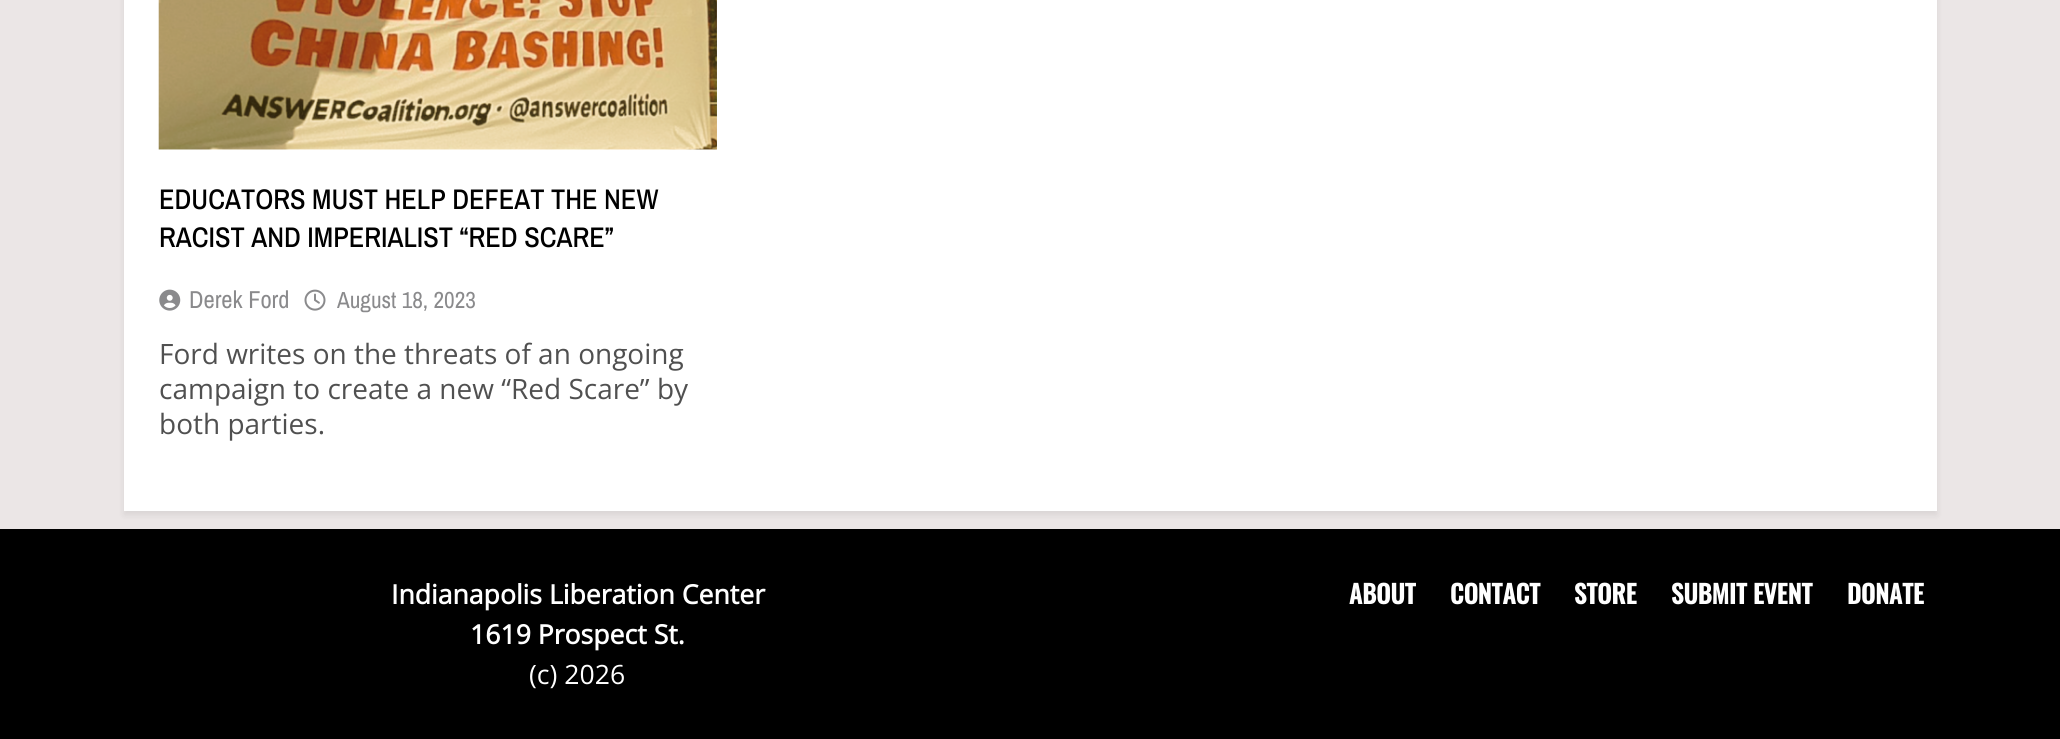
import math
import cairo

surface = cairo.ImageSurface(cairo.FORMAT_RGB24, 2060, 739)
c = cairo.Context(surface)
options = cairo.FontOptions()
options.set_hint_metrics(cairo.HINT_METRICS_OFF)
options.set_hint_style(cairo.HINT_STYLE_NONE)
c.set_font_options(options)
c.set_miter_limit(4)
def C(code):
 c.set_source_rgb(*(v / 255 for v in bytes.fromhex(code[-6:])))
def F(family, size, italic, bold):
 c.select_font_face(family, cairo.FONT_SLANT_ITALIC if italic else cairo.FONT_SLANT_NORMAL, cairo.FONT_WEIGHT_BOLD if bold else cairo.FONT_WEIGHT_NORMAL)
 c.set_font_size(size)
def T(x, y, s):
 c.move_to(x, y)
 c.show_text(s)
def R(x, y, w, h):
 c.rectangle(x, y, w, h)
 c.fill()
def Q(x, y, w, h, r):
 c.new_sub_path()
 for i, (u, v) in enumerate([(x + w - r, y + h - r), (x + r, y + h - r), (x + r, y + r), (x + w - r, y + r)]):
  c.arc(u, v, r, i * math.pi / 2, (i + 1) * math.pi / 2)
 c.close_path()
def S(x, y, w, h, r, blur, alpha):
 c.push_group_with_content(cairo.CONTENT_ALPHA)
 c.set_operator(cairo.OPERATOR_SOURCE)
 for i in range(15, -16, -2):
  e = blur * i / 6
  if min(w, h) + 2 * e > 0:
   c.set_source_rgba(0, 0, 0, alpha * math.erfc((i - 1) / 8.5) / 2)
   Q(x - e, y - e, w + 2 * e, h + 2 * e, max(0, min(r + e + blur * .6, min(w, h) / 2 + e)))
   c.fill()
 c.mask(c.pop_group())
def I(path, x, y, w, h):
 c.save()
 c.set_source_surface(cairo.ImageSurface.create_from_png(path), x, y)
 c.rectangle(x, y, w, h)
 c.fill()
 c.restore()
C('ebe6e6')
c.paint()
C('000000')
S(124,-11,1813,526,0,3.5,.08)
C('ffffff')
R(124,0,1813,511)
I('1.png',158,0,559,150)
F('Archivo Narrow Medium',28.4,0,0)
C('000000')
T(159,209,'EDUCATORS MUST HELP DEFEAT THE NEW')
T(159,247,'RACIST AND IMPERIALIST “RED SCARE”')
I('2.png',159,289,22,22)
F('Archivo Narrow',24.5,0,0)
C('8a8a8c')
T(189,308,'Derek Ford')
I('3.png',304,289,22,22)
F('Archivo Narrow',23.25,0,0)
T(337,308,'August 18, 2023')
F('Open Sans',28,0,0)
C('505050')
T(159,364,'Ford writes on the threats of an ongoing')
T(159,399,'campaign to create a new “Red Scare” by')
T(159,434,'both parties.')
C('000000')
R(0,529,2060,210)
F('Open Sans',26.6,0,1)
C('ffffff')
T(391,604,'Indianapolis Liberation Center')
T(470,644,'1619 Prospect St.')
F('Open Sans',26.6,0,0)
T(529,684,'(c) 2026')
F('Oswald',25.25,0,1)
T(1349,604,'ABOUT')
T(1450,604,'CONTACT')
T(1574,604,'STORE')
T(1671,604,'SUBMIT EVENT')
T(1847,604,'DONATE')
surface.write_to_png('o.png')
